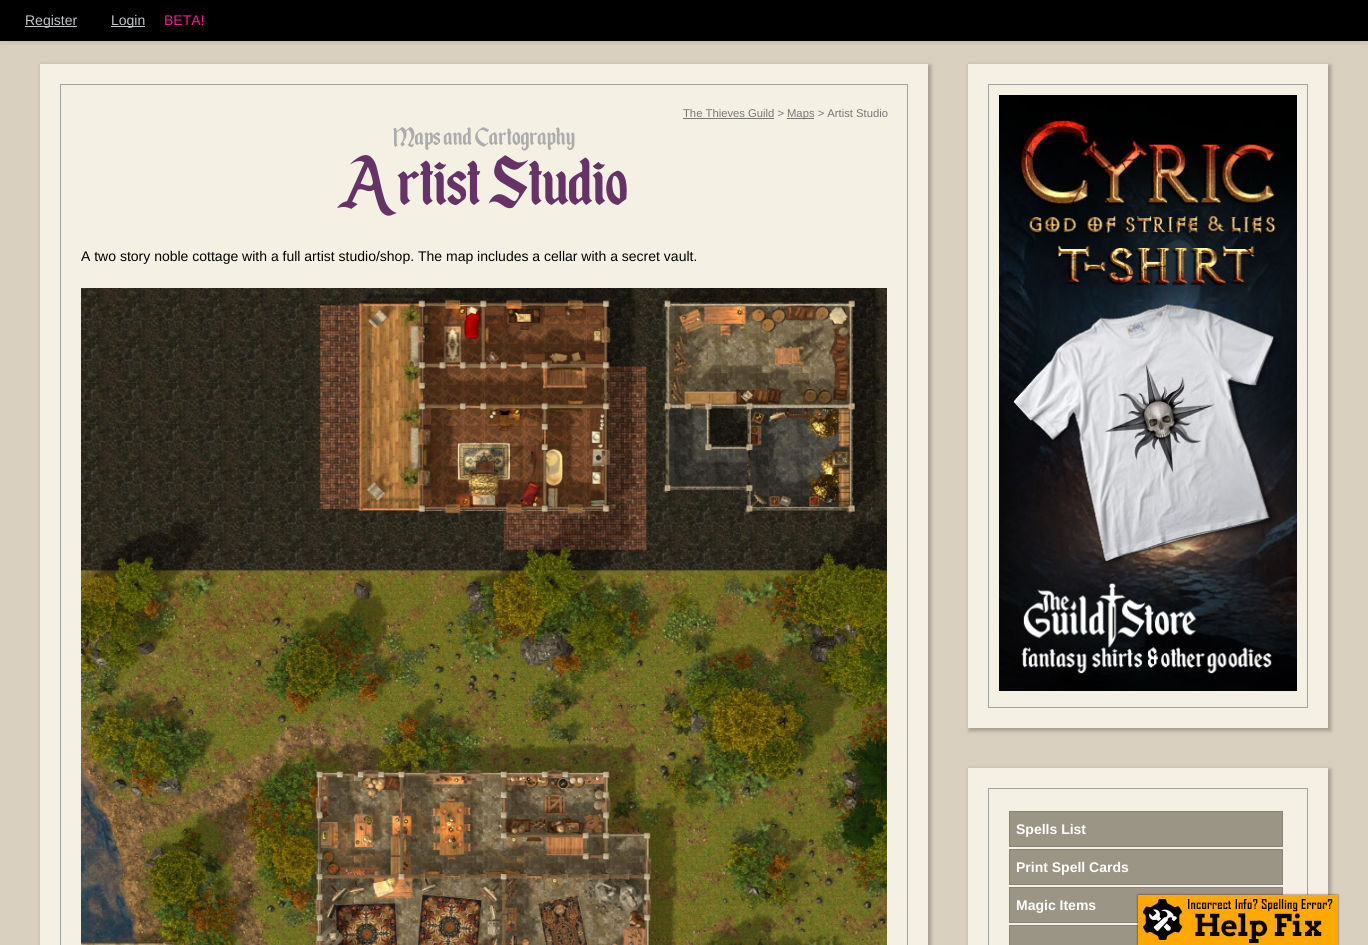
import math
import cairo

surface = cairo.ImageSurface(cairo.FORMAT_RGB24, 1368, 945)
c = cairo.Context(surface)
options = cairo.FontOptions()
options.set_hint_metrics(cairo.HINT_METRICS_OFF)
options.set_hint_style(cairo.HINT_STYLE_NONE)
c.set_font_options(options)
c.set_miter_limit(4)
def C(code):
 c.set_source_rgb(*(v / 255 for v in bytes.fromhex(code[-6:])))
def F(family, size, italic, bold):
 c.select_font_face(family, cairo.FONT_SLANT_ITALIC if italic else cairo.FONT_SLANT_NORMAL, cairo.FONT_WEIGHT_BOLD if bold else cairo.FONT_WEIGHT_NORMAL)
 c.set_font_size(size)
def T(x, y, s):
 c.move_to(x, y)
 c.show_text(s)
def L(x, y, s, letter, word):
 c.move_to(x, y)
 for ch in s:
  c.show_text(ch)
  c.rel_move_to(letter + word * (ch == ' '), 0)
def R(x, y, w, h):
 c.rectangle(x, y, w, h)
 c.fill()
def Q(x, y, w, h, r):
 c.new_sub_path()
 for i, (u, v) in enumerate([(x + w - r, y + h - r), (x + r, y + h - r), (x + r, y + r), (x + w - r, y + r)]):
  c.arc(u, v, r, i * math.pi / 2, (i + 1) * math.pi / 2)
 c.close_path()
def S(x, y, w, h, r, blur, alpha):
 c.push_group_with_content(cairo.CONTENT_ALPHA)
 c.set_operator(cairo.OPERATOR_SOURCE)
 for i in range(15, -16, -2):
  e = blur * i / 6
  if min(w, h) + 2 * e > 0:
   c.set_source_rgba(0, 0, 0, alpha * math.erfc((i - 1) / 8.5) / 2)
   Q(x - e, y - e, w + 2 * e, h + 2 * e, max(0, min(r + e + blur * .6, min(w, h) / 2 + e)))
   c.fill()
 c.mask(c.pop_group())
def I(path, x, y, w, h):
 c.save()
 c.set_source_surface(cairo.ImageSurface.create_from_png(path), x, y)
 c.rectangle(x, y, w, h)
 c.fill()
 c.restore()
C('dad0c0')
c.paint()
C('000000')
S(0,2,1368,41,0,2.5,.1)
C('000000')
R(0,0,1368,41)
C('c1c4c8')
R(25,26,52,1)
F('Liberation Sans',14,0,0)
T(25,25,'Register')
R(111,26,34,1)
T(111,25,'Login')
C('ff1493')
T(164,25,'BETA!')
C('000000')
S(41,65,890,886,0,2,.25)
C('f4f0e4')
R(40,64,888,881)
c.rectangle(60.5,84.5,847,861)
C('a1a1a1')
c.set_line_width(1)
c.stroke()
F('Liberation Sans',11.25,0,0)
C('767676')
T(683,117,'The Thieves Guild >')
R(683,118,91,1)
R(787,118,27,1)
T(787,117,'Maps > Artist Studio')
F('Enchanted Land',30,0,0)
C('acacac')
T(393,145,'Maps and Cartography')
F('Enchanted Land',80,0,0)
C('663366')
L(339,205,'Artist Studio',-.5,0)
F('Liberation Sans',14,0,0)
C('000000')
T(81,261,'A two story noble cottage with a full artist studio/shop. The map includes a cellar with a secret vault.')
I('1.png',81,288,806,657)
C('000000')
S(969,65,362,666,0,2,.25)
C('f4f0e4')
R(968,64,360,664)
c.rectangle(988.5,84.5,319,623)
C('a1a1a1')
c.stroke()
I('2.png',999,95,298,596)
C('000000')
S(969,769,362,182,0,2,.25)
C('f4f0e4')
R(968,768,360,177)
c.rectangle(988.5,788.5,319,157)
C('a1a1a1')
c.stroke()
C('9a9584')
c.rectangle(1009.5,811.5,273,35)
c.fill_preserve()
C('888475')
c.stroke()
F('Liberation Sans',14,0,1)
C('ffffff')
T(1016,834,'Spells List')
C('9a9584')
c.rectangle(1009.5,849.5,273,35)
c.fill_preserve()
C('888475')
c.stroke()
C('ffffff')
T(1016,872,'Print Spell Cards')
C('9a9584')
c.rectangle(1009.5,887.5,273,35)
c.fill_preserve()
C('888475')
c.stroke()
C('ffffff')
T(1016,910,'Magic Items')
C('9a9584')
R(1010,926,128,19)
c.rectangle(1009.5,925.5,273,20)
C('888475')
c.stroke()
C('000000')
S(1138,895,200,50,0,1,.65)
I('3.png',1138,895,200,50)
surface.write_to_png('o.png')
